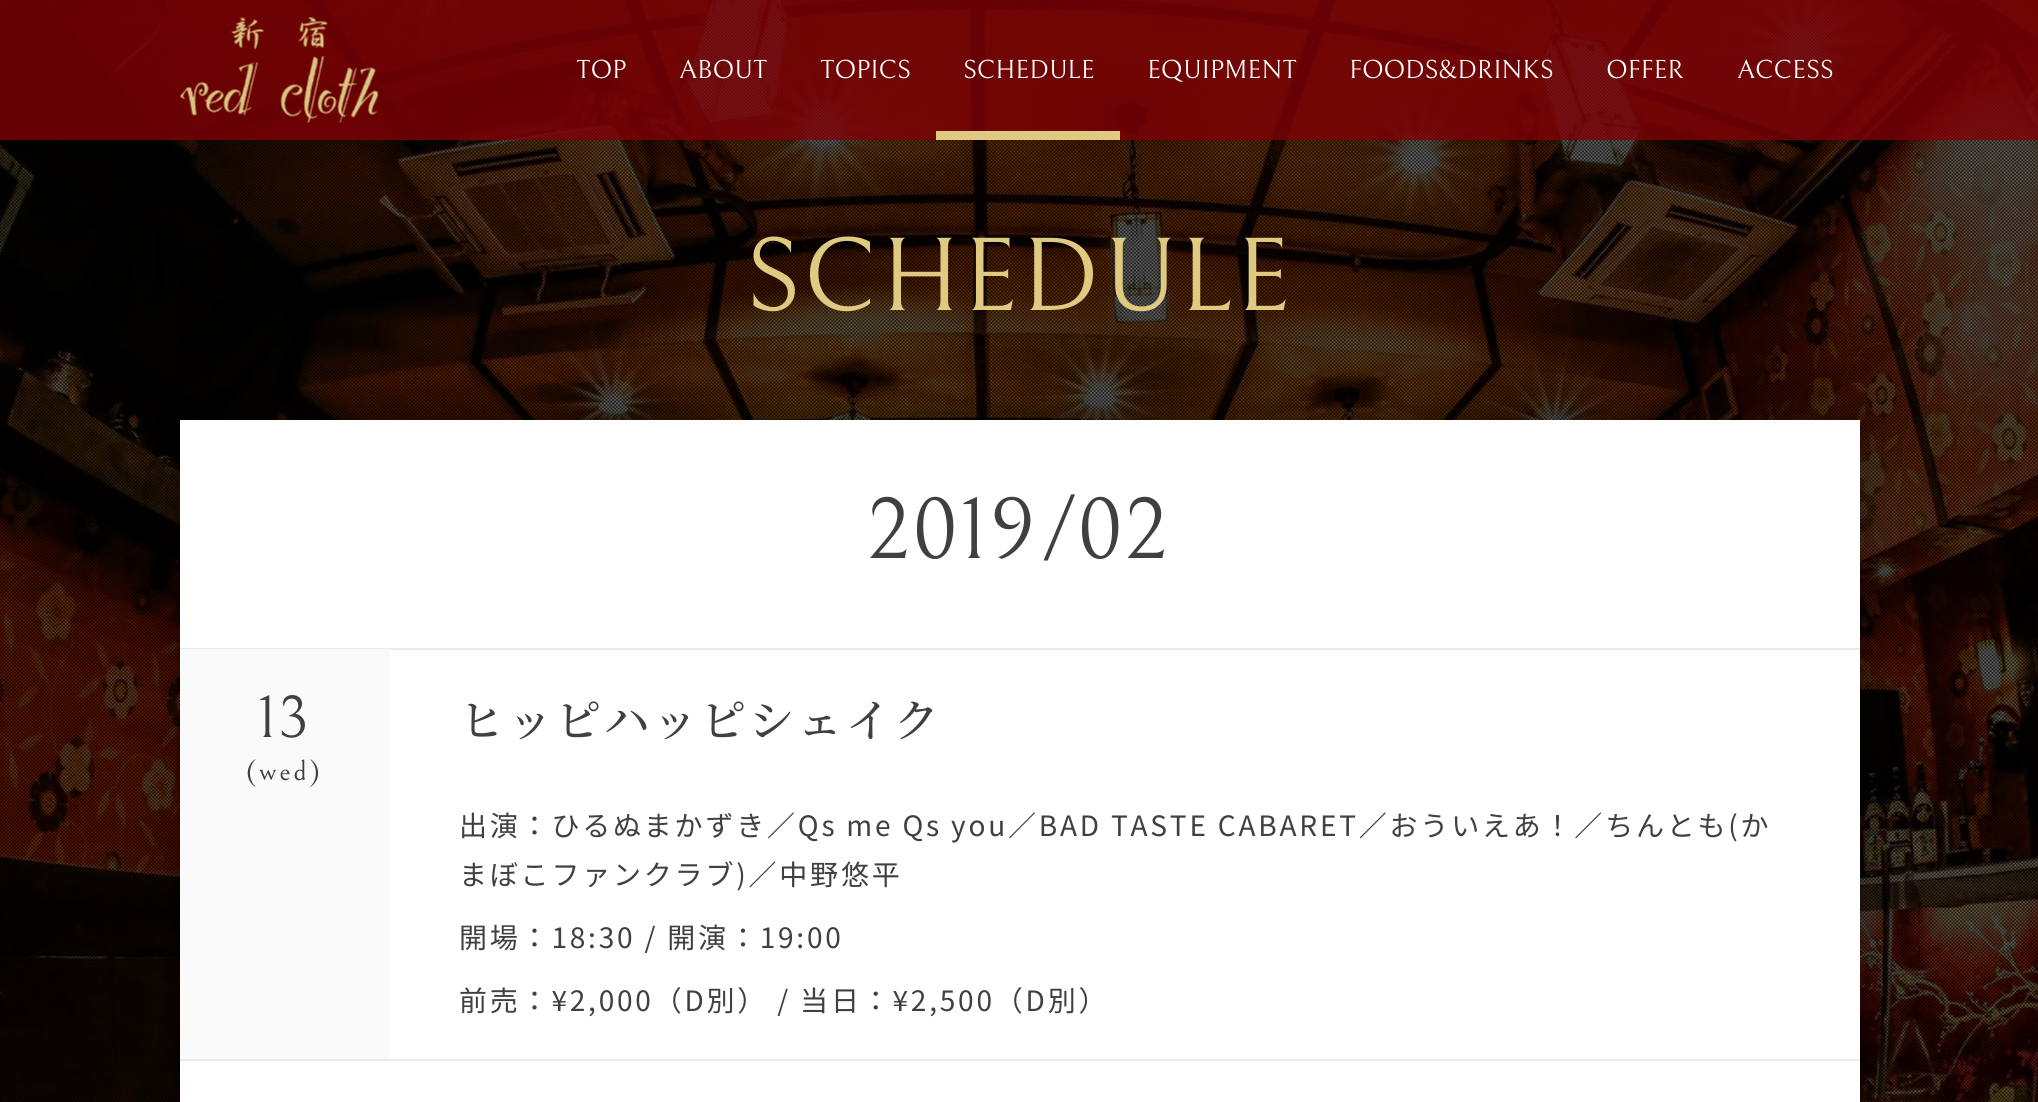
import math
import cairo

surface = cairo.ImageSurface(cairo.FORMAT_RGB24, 2038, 1102)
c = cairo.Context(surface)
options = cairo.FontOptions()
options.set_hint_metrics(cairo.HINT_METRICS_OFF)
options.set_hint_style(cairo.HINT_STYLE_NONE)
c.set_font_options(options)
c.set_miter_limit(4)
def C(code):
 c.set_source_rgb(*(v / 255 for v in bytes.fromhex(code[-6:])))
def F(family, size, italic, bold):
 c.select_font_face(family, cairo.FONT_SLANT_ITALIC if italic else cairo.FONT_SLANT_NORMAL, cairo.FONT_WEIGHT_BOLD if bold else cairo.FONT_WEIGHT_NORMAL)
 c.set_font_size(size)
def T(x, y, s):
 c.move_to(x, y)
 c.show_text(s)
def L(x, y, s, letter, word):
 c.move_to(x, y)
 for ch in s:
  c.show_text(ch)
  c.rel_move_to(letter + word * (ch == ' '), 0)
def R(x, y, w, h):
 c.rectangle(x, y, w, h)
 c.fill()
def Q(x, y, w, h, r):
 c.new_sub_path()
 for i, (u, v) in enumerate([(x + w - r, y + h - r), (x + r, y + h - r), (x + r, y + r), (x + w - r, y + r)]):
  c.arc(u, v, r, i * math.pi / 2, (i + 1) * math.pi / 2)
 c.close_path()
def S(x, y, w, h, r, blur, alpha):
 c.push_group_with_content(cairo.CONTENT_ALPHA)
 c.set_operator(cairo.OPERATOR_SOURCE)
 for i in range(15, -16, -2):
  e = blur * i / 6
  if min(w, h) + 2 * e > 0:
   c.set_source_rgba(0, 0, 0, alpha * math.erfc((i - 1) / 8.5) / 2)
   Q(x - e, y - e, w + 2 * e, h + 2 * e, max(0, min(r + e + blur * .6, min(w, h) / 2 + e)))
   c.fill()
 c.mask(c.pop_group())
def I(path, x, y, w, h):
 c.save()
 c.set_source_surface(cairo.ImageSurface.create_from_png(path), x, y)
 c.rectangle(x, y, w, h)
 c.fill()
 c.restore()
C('ffffff')
c.paint()
I('2.png',0,0,2038,1102)
I('3.png',0,0,2038,1102)
c.set_source_rgba(0.494,0,0.02,0.8)
R(0,0,2038,140)
I('1.png',180,17,199,106)
F('Bellefair',26.25,0,0)
C('ffffff')
T(576,78,'TOP')
T(679,78,'ABOUT')
T(820,78,'TOPICS')
T(963,78,'SCHEDULE')
C('e0ca82')
R(936,131,184,9)
C('ffffff')
T(1147,78,'EQUIPMENT')
T(1349,78,'FOODS&DRINKS')
T(1606,78,'OFFER')
T(1737,78,'ACCESS')
F('Bellefair',105,0,0)
C('e0ca82')
L(745,310,'SCHEDULE',2.8,0)
C('000000')
S(180,420,1680,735,0,17.5,.3)
C('ffffff')
R(180,420,1680,682)
F('Bellefair',87.5,0,0)
C('404040')
L(868,558,'2019/02',2.8,0)
C('eaeaea')
R(180,648,1680,2)
R(180,1059,1680,2)
C('fafafa')
R(180,649,210,410)
F('Bellefair',60,0,0)
C('404040')
L(258,737,'13',2.8,0)
F('Bellefair',28,0,0)
L(246,780,'(wed)',2.8,0)
F('Noto Serif JP Medium',45.5,0,0)
L(459,737,'ヒッピハッピシェイク',2.8,0)
F('Noto Sans JP',28,0,0)
L(459,836,'出演：ひるぬまかずき／Qs me Qs you／BAD TASTE CABARET／おういえあ！／ちんとも(か',2.8,0)
L(459,885,'まぼこファンクラブ)／中野悠平',2.8,0)
L(459,948,'開場：18:30 / 開演：19:00',2.8,0)
L(459,1011,'前売：¥2,000（D別） / 当日：¥2,500（D別）',2.8,0)
surface.write_to_png('o.png')
